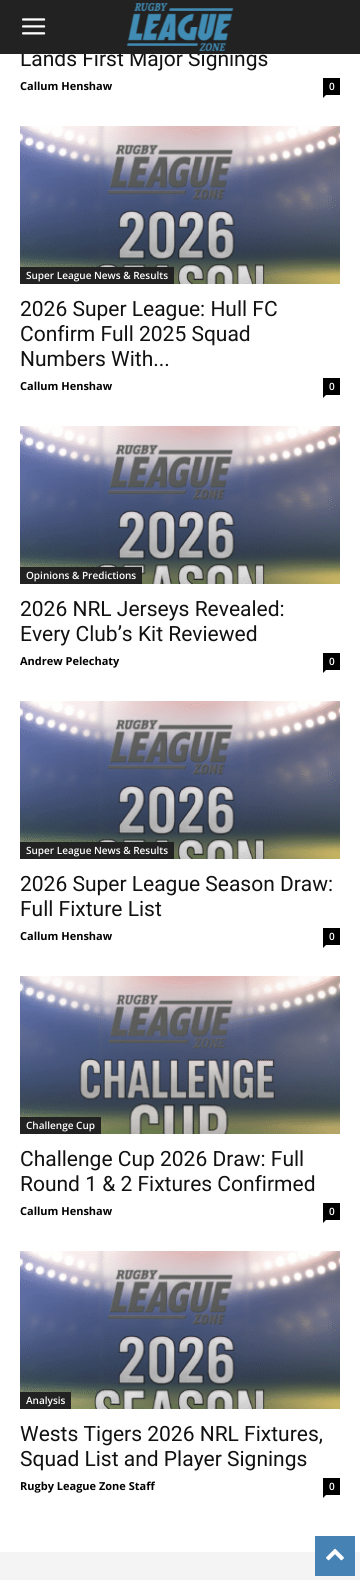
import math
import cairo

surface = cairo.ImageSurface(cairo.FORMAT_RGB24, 360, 1580)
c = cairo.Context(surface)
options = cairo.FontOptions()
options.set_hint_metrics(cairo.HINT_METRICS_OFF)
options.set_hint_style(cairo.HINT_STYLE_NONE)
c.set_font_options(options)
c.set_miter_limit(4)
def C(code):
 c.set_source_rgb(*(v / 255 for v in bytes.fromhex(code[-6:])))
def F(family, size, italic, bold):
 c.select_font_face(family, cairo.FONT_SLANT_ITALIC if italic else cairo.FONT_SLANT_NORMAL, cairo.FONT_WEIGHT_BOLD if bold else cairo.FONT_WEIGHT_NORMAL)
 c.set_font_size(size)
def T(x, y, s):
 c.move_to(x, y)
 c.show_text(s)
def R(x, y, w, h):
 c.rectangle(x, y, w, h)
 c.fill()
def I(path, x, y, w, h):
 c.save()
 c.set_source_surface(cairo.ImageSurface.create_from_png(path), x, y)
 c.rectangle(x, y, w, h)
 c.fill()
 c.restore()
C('ffffff')
c.paint()
F('Roboto',21,0,0)
C('111111')
T(20,66,'Lands First Major Signings')
C('222222')
R(0,0,360,54)
I('1.png',22,18,24,17)
I('2.png',126,3,108,48)
F('Open Sans',11,0,1)
C('000000')
T(20,90,'Callum Henshaw')
R(323,78,17,17)
F('Open Sans SemiBold',10,0,0)
C('ffffff')
T(329,90,'0')
C('000000')
c.new_path()
c.move_to(323,95)
c.line_to(326,95)
c.line_to(323,98)
c.close_path()
c.fill()
I('3.png',20,126,320,158)
C('222222')
R(20,267,154,17)
C('ffffff')
T(26,279,'Super League News & Results')
F('Roboto',21,0,0)
C('111111')
T(20,316,'2026 Super League: Hull FC')
T(20,341,'Confirm Full 2025 Squad')
T(20,366,'Numbers With...')
F('Open Sans',11,0,1)
C('000000')
T(20,390,'Callum Henshaw')
R(323,378,17,17)
F('Open Sans SemiBold',10,0,0)
C('ffffff')
T(329,390,'0')
C('000000')
c.new_path()
c.move_to(323,395)
c.line_to(326,395)
c.line_to(323,398)
c.close_path()
c.fill()
I('3.png',20,426,320,158)
C('222222')
R(20,567,122,17)
C('ffffff')
T(26,579,'Opinions & Predictions')
F('Roboto',21,0,0)
C('111111')
T(20,616,'2026 NRL Jerseys Revealed:')
T(20,641,'Every Club’s Kit Reviewed')
F('Open Sans',11,0,1)
C('000000')
T(20,665,'Andrew Pelechaty')
R(323,653,17,17)
F('Open Sans SemiBold',10,0,0)
C('ffffff')
T(329,665,'0')
C('000000')
c.new_path()
c.move_to(323,670)
c.line_to(326,670)
c.line_to(323,673)
c.close_path()
c.fill()
I('3.png',20,701,320,158)
C('222222')
R(20,842,154,17)
C('ffffff')
T(26,854,'Super League News & Results')
F('Roboto',21,0,0)
C('111111')
T(20,891,'2026 Super League Season Draw:')
T(20,916,'Full Fixture List')
F('Open Sans',11,0,1)
C('000000')
T(20,940,'Callum Henshaw')
R(323,928,17,17)
F('Open Sans SemiBold',10,0,0)
C('ffffff')
T(329,940,'0')
C('000000')
c.new_path()
c.move_to(323,945)
c.line_to(326,945)
c.line_to(323,948)
c.close_path()
c.fill()
I('4.png',20,976,320,158)
C('222222')
R(20,1117,81,17)
C('ffffff')
T(26,1129,'Challenge Cup')
F('Roboto',21,0,0)
C('111111')
T(20,1166,'Challenge Cup 2026 Draw: Full')
T(20,1191,'Round 1 & 2 Fixtures Confirmed')
F('Open Sans',11,0,1)
C('000000')
T(20,1215,'Callum Henshaw')
R(323,1203,17,17)
F('Open Sans SemiBold',10,0,0)
C('ffffff')
T(329,1215,'0')
C('000000')
c.new_path()
c.move_to(323,1220)
c.line_to(326,1220)
c.line_to(323,1223)
c.close_path()
c.fill()
I('3.png',20,1251,320,158)
C('222222')
R(20,1392,51,17)
C('ffffff')
T(26,1404,'Analysis')
F('Roboto',21,0,0)
C('111111')
T(20,1441,'Wests Tigers 2026 NRL Fixtures,')
T(20,1466,'Squad List and Player Signings')
F('Open Sans',11,0,1)
C('000000')
T(20,1490,'Rugby League Zone Staff')
R(323,1478,17,17)
F('Open Sans SemiBold',10,0,0)
C('ffffff')
T(329,1490,'0')
C('000000')
c.new_path()
c.move_to(323,1495)
c.line_to(326,1495)
c.line_to(323,1498)
c.close_path()
c.fill()
C('f4f4f4')
R(0,1552,360,28)
C('4682b4')
R(315,1536,40,40)
I('5.png',326,1548,18,13)
surface.write_to_png('o.png')
